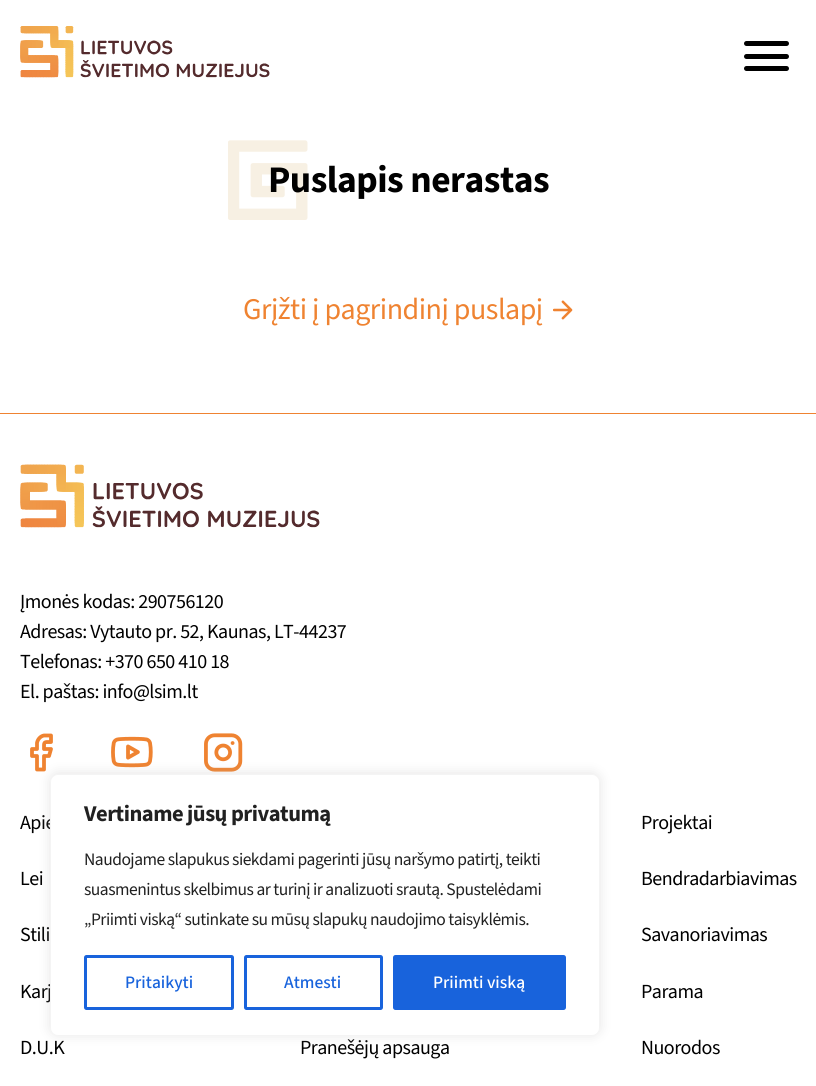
import math
import cairo

surface = cairo.ImageSurface(cairo.FORMAT_RGB24, 816, 1086)
c = cairo.Context(surface)
options = cairo.FontOptions()
options.set_hint_metrics(cairo.HINT_METRICS_OFF)
options.set_hint_style(cairo.HINT_STYLE_NONE)
c.set_font_options(options)
c.set_miter_limit(4)
def C(code):
 c.set_source_rgb(*(v / 255 for v in bytes.fromhex(code[-6:])))
def F(family, size, italic, bold):
 c.select_font_face(family, cairo.FONT_SLANT_ITALIC if italic else cairo.FONT_SLANT_NORMAL, cairo.FONT_WEIGHT_BOLD if bold else cairo.FONT_WEIGHT_NORMAL)
 c.set_font_size(size)
def T(x, y, s):
 c.move_to(x, y)
 c.show_text(s)
def L(x, y, s, letter, word):
 c.move_to(x, y)
 for ch in s:
  c.show_text(ch)
  c.rel_move_to(letter + word * (ch == ' '), 0)
def R(x, y, w, h):
 c.rectangle(x, y, w, h)
 c.fill()
def Q(x, y, w, h, r):
 c.new_sub_path()
 for i, (u, v) in enumerate([(x + w - r, y + h - r), (x + r, y + h - r), (x + r, y + r), (x + w - r, y + r)]):
  c.arc(u, v, r, i * math.pi / 2, (i + 1) * math.pi / 2)
 c.close_path()
def S(x, y, w, h, r, blur, alpha):
 c.push_group_with_content(cairo.CONTENT_ALPHA)
 c.set_operator(cairo.OPERATOR_SOURCE)
 for i in range(15, -16, -2):
  e = blur * i / 6
  if min(w, h) + 2 * e > 0:
   c.set_source_rgba(0, 0, 0, alpha * math.erfc((i - 1) / 8.5) / 2)
   Q(x - e, y - e, w + 2 * e, h + 2 * e, max(0, min(r + e + blur * .6, min(w, h) / 2 + e)))
   c.fill()
 c.mask(c.pop_group())
def I(path, x, y, w, h):
 c.save()
 c.set_source_surface(cairo.ImageSurface.create_from_png(path), x, y)
 c.rectangle(x, y, w, h)
 c.fill()
 c.restore()
C('ffffff')
c.paint()
I('1.png',20,26,250,52)
C('000000')
Q(744,41,45,5,2.5)
c.fill()
Q(744,54,45,5,2.5)
c.fill()
Q(744,66,45,5,2.5)
c.fill()
I('2.png',228,140,80,80)
F('Source Sans 3',37.5,0,1)
L(268,192,'Puslapis nerastas',-.5,0)
F('Source Sans 3',30,0,0)
C('ef8331')
L(243,319,'Grįžti į pagrindinį puslapį',-.5,0)
I('3.png',553,300,20,20)
R(0,413,816,1)
I('4.png',20,464,300,64)
F('Source Sans 3',20,0,0)
C('000000')
L(20,608,'Įmonės kodas: 290756120',-.5,0)
L(20,638,'Adresas: Vytauto pr. 52, Kaunas, LT-44237',-.5,0)
L(20,668,'Telefonas: +370 650 410 18',-.5,0)
L(20,698,'El. paštas: info@lsim.lt',-.5,0)
c.new_path()
c.move_to(51,735.5)
c.line_to(44,735.5)
c.curve_to(40.5,736,37.5,739.5,37,743)
c.line_to(37,749)
c.line_to(32,749)
c.line_to(32,756)
c.line_to(37,756)
c.line_to(37,769.5)
c.line_to(44,769.5)
c.line_to(44,756)
c.line_to(49,756)
c.line_to(51,749)
c.line_to(44,749)
c.curve_to(44,741.5,43.5,742,51,742)
c.close_path()
C('ef8331')
c.set_line_width(3.8)
c.set_line_cap(cairo.LINE_CAP_ROUND)
c.set_line_join(cairo.LINE_JOIN_ROUND)
c.stroke()
I('5.png',111,736,42,32)
I('6.png',204,733,39,39)
C('000000')
L(20,829,'Apie',-.5,0)
L(20,885,'Lei',-.5,0)
L(20,941,'Stili',-.5,0)
L(20,998,'Karj',-.5,0)
L(20,1054,'D.U.K',-.5,0)
L(300,1054,'Pranešėjų apsauga',-.5,0)
L(641,829,'Projektai',-.5,0)
L(641,885,'Bendradarbiavimas',-.5,0)
L(641,941,'Savanoriavimas',-.5,0)
L(641,998,'Parama',-.5,0)
L(641,1054,'Nuorodos',-.5,0)
C('acabab')
S(50,773,550,262,8,6,.3)
C('ffffff')
Q(50.5,774.5,549,261,7.5)
c.fill_preserve()
C('f4f4f4')
c.set_line_width(1)
c.set_line_cap(cairo.LINE_CAP_BUTT)
c.set_line_join(cairo.LINE_JOIN_MITER)
c.stroke()
F('Source Sans 3',22.5,0,1)
C('212121')
L(84,821,'Vertiname jūsų privatumą',-.5,0)
F('Source Sans 3',17.5,0,0)
L(84,865,'Naudojame slapukus siekdami pagerinti jūsų naršymo patirtį, teikti',-.5,0)
L(84,895,'suasmenintus skelbimus ar turinį ir analizuoti srautą. Spustelėdami',-.5,0)
L(84,925,'„Priimti viską“ sutinkate su mūsų slapukų naudojimo taisyklėmis.',-.5,0)
Q(85.5,956.5,147,52,1)
C('1863dc')
c.set_line_width(3)
c.stroke()
F('Source Sans 3 Medium',17.5,0,0)
T(125,988,'Pritaikyti')
Q(245.5,956.5,136,52,1)
c.stroke()
T(284,988,'Atmesti')
Q(394.5,956.5,170,52,1)
c.fill_preserve()
c.stroke()
C('ffffff')
T(433,988,'Priimti viską')
surface.write_to_png('o.png')
